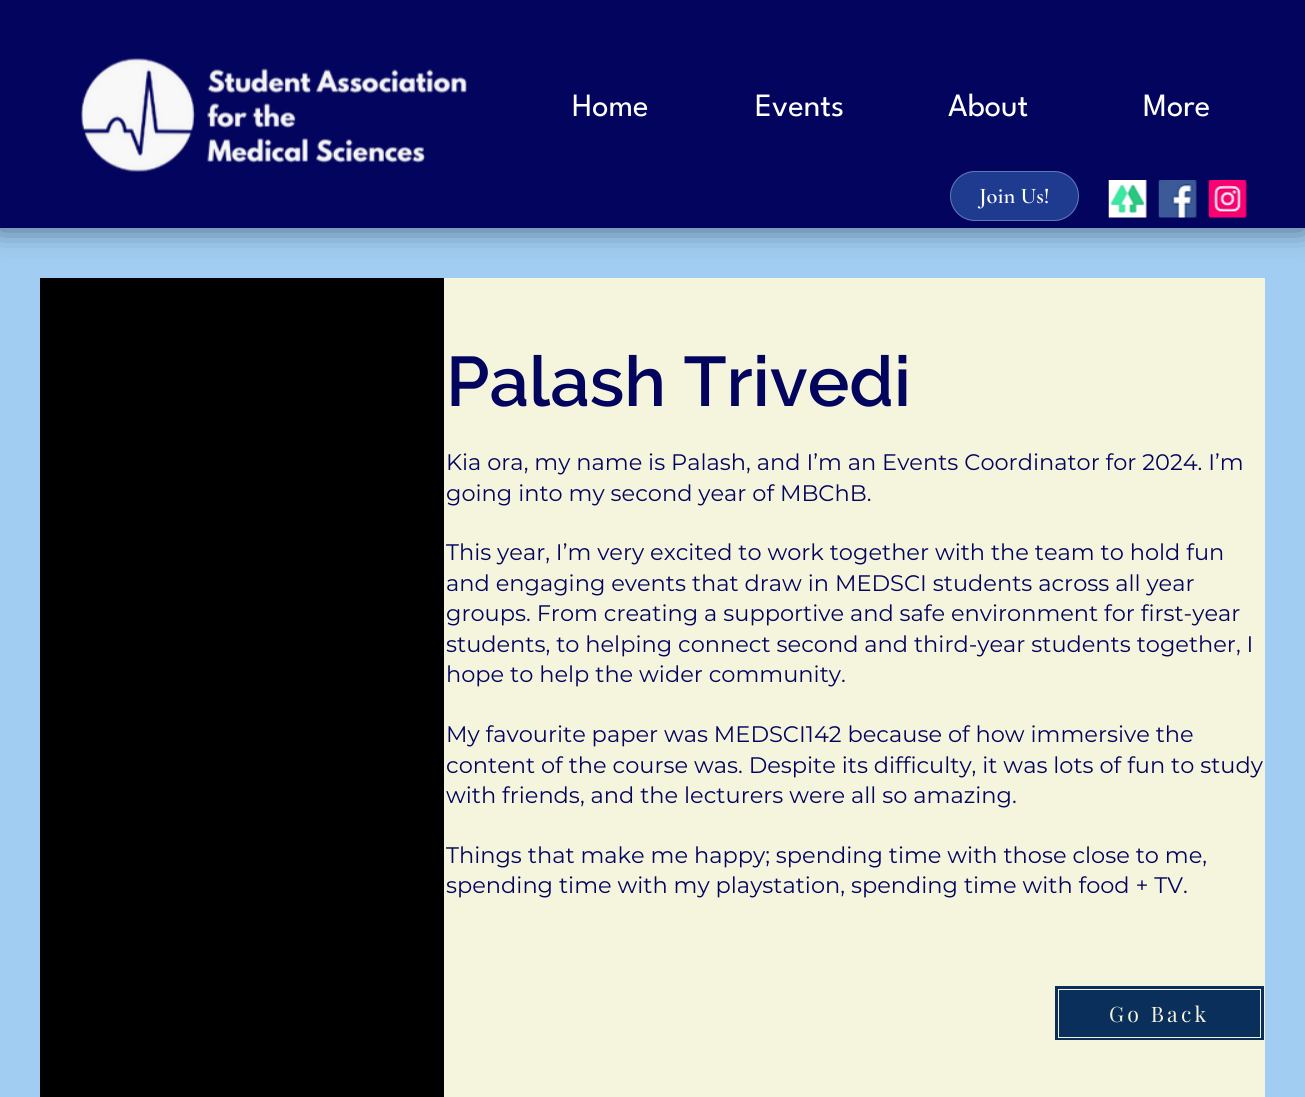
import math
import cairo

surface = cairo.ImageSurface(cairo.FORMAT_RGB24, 1305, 1097)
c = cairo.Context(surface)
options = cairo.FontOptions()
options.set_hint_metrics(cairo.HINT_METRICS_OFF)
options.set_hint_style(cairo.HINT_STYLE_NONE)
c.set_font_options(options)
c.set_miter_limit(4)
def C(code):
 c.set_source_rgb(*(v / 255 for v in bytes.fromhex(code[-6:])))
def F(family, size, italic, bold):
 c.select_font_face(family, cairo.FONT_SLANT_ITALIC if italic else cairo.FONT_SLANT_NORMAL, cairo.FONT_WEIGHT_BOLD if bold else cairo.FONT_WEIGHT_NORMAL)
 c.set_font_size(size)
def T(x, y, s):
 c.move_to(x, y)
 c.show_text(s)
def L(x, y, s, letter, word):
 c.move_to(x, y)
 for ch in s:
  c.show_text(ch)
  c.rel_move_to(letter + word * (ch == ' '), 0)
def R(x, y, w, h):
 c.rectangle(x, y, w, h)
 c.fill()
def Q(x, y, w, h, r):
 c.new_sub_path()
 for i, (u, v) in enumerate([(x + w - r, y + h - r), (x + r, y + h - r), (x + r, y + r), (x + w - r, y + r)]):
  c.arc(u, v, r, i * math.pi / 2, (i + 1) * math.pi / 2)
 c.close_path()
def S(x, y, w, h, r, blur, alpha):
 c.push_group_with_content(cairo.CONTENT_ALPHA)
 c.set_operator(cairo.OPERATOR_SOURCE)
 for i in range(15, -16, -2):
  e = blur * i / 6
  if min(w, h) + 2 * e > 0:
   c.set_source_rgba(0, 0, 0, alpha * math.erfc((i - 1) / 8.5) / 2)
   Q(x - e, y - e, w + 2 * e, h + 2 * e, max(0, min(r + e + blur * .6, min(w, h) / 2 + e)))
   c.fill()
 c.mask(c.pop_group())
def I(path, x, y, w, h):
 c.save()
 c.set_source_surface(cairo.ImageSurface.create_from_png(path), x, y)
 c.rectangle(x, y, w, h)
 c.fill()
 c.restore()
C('a2cdf2')
c.paint()
C('010e1b')
S(-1,-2,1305,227,0,15.5,.7)
C('03045e')
R(0,0,1305,228)
I('1.png',81,58,386,114)
F('League Spartan',32.5,0,0)
C('ffffff')
T(572,116,'Home')
T(755,116,'Events')
T(948,116,'About')
T(1143,116,'More')
C('1e3b90')
Q(950,171,129,50,25)
c.fill()
Q(950.5,171.5,128,49,24.5)
c.set_source_rgba(1,1,1,0.31)
c.set_line_width(1)
c.stroke()
F('Cormorant Garamond SemiBold',22.5,0,0)
C('ffffff')
T(979,203,'Join Us!')
I('2.png',1108,180,39,38)
I('3.png',1158,180,39,38)
I('4.png',1208,180,39,38)
C('f5f5dd')
R(444,278,821,819)
C('000000')
R(40,278,404,819)
F('Raleway SemiBold',70,0,0)
C('03045e')
T(446,406,'Palash Trivedi')
F('Montserrat',22.5,0,0)
T(446,470,'Kia ora, my name is Palash, and I’m an Events Coordinator for 2024. I’m')
T(446,501,'going into my second year of MBChB.')
T(446,560,'This year, I’m very excited to work together with the team to hold fun')
T(446,591,'and engaging events that draw in MEDSCI students across all year')
T(446,621,'groups. From creating a supportive and safe environment for first-year')
T(446,652,'students, to helping connect second and third-year students together, I')
T(446,682,'hope to help the wider community.')
T(446,742,'My favourite paper was MEDSCI142 because of how immersive the')
T(446,773,'content of the course was. Despite its difficulty, it was lots of fun to study')
T(446,803,'with friends, and the lecturers were all so amazing.')
T(446,863,'Things that make me happy; spending time with those close to me,')
T(446,893,'spending time with my playstation, spending time with food + TV.')
C('0b2f5b')
R(1055,986,209,54)
c.rectangle(1058.5,989.5,202,48)
C('f5f5dd')
c.stroke()
F('Playfair Display',21.25,0,0)
L(1109,1022,'Go Back',3.25,0)
surface.write_to_png('o.png')
